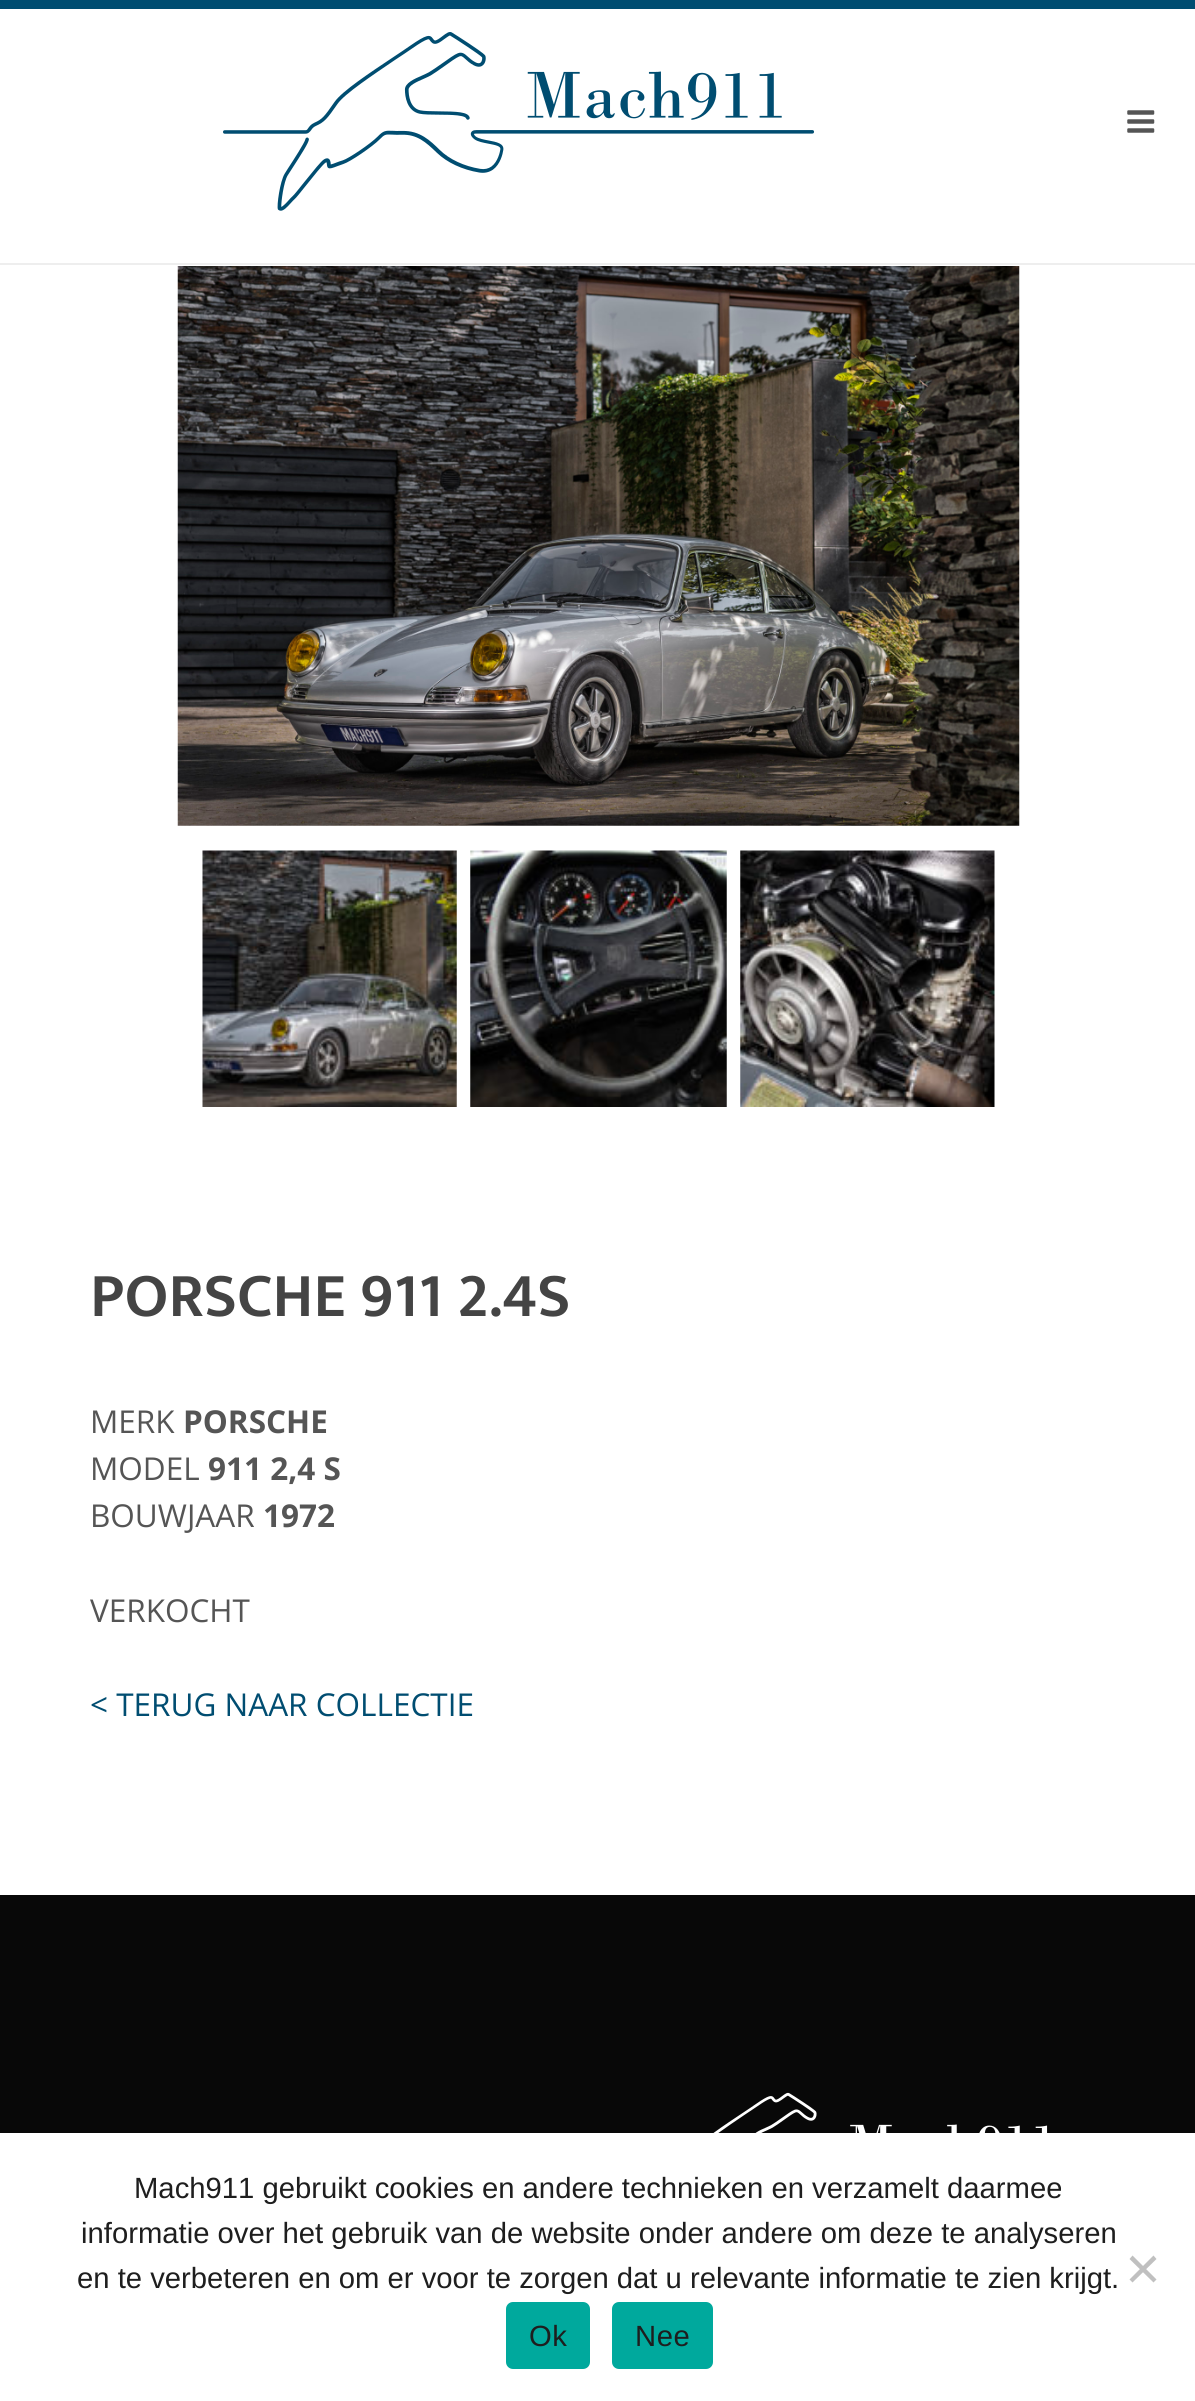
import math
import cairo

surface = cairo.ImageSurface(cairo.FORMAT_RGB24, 1195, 2401)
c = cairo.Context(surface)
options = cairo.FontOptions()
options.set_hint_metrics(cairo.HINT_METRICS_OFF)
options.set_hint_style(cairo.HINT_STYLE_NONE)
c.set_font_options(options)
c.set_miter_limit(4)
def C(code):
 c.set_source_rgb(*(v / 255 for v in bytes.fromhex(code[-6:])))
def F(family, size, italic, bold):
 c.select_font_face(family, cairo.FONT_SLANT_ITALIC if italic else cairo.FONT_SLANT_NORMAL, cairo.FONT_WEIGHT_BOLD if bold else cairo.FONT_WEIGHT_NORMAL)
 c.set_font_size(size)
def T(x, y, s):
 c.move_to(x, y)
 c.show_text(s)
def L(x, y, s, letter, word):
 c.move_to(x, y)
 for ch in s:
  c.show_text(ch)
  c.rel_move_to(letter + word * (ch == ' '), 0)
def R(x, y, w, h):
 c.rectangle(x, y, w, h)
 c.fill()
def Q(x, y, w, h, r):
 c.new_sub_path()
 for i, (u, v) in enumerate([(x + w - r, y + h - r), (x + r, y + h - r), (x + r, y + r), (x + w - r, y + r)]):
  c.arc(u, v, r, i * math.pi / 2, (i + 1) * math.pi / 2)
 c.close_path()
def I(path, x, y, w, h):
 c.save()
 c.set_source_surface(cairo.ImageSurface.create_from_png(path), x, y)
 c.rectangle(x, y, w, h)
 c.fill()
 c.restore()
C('ffffff')
c.paint()
C('004d71')
R(0,0,1195,9)
C('eeeeee')
R(0,263,1195,2)
I('1.png',223,32,591,179)
I('2.png',1127,110,28,23)
I('3.png',177,266,843,560)
I('4.png',202,850,255,257)
I('5.png',470,850,257,257)
I('6.png',740,850,255,257)
F('Mukta Vaani SemiBold',63,0,0)
C('444444')
T(90,1316,'PORSCHE 911 2.4S')
F('Open Sans',31.5,0,0)
C('555555')
T(90,1433,'MERK')
F('Open Sans',31.5,0,1)
T(183,1433,'PORSCHE')
F('Open Sans',31.5,0,0)
T(90,1480,'MODEL')
F('Open Sans',31.5,0,1)
T(208,1480,'911 2,4 S')
F('Open Sans',31.5,0,0)
T(90,1527,'BOUWJAAR')
F('Open Sans',31.5,0,1)
T(263,1527,'1972')
F('Open Sans',31.5,0,0)
T(90,1622,'VERKOCHT')
C('004d71')
T(90,1716,'< TERUG NAAR COLLECTIE')
C('080808')
R(0,1895,1195,238)
I('7.png',713,2092,335,41)
F('Liberation Sans',29.25,0,0)
C('1e1e1e')
T(134,2198,'Mach911 gebruikt cookies en andere technieken en verzamelt daarmee')
T(81,2243,'informatie over het gebruik van de website onder andere om deze te analyseren')
T(77,2288,'en te verbeteren en om er voor te zorgen dat u relevante informatie te zien krijgt.')
C('c0c0c0')
c.new_path()
c.move_to(1153.5,2255.5)
c.line_to(1156.5,2259)
c.line_to(1132.5,2282.5)
c.line_to(1129.5,2279.5)
c.close_path()
c.fill()
c.new_path()
c.move_to(1129.5,2259)
c.line_to(1132.5,2255.5)
c.line_to(1156.5,2279.5)
c.line_to(1153.5,2282.5)
c.close_path()
c.fill()
C('00a99d')
Q(506,2302,84,67,7)
c.fill()
C('1e1e1e')
L(529,2346,'Ok',.5,0)
C('00a99d')
Q(612,2302,101,67,7)
c.fill()
C('1e1e1e')
L(635,2346,'Nee',.5,0)
surface.write_to_png('o.png')
